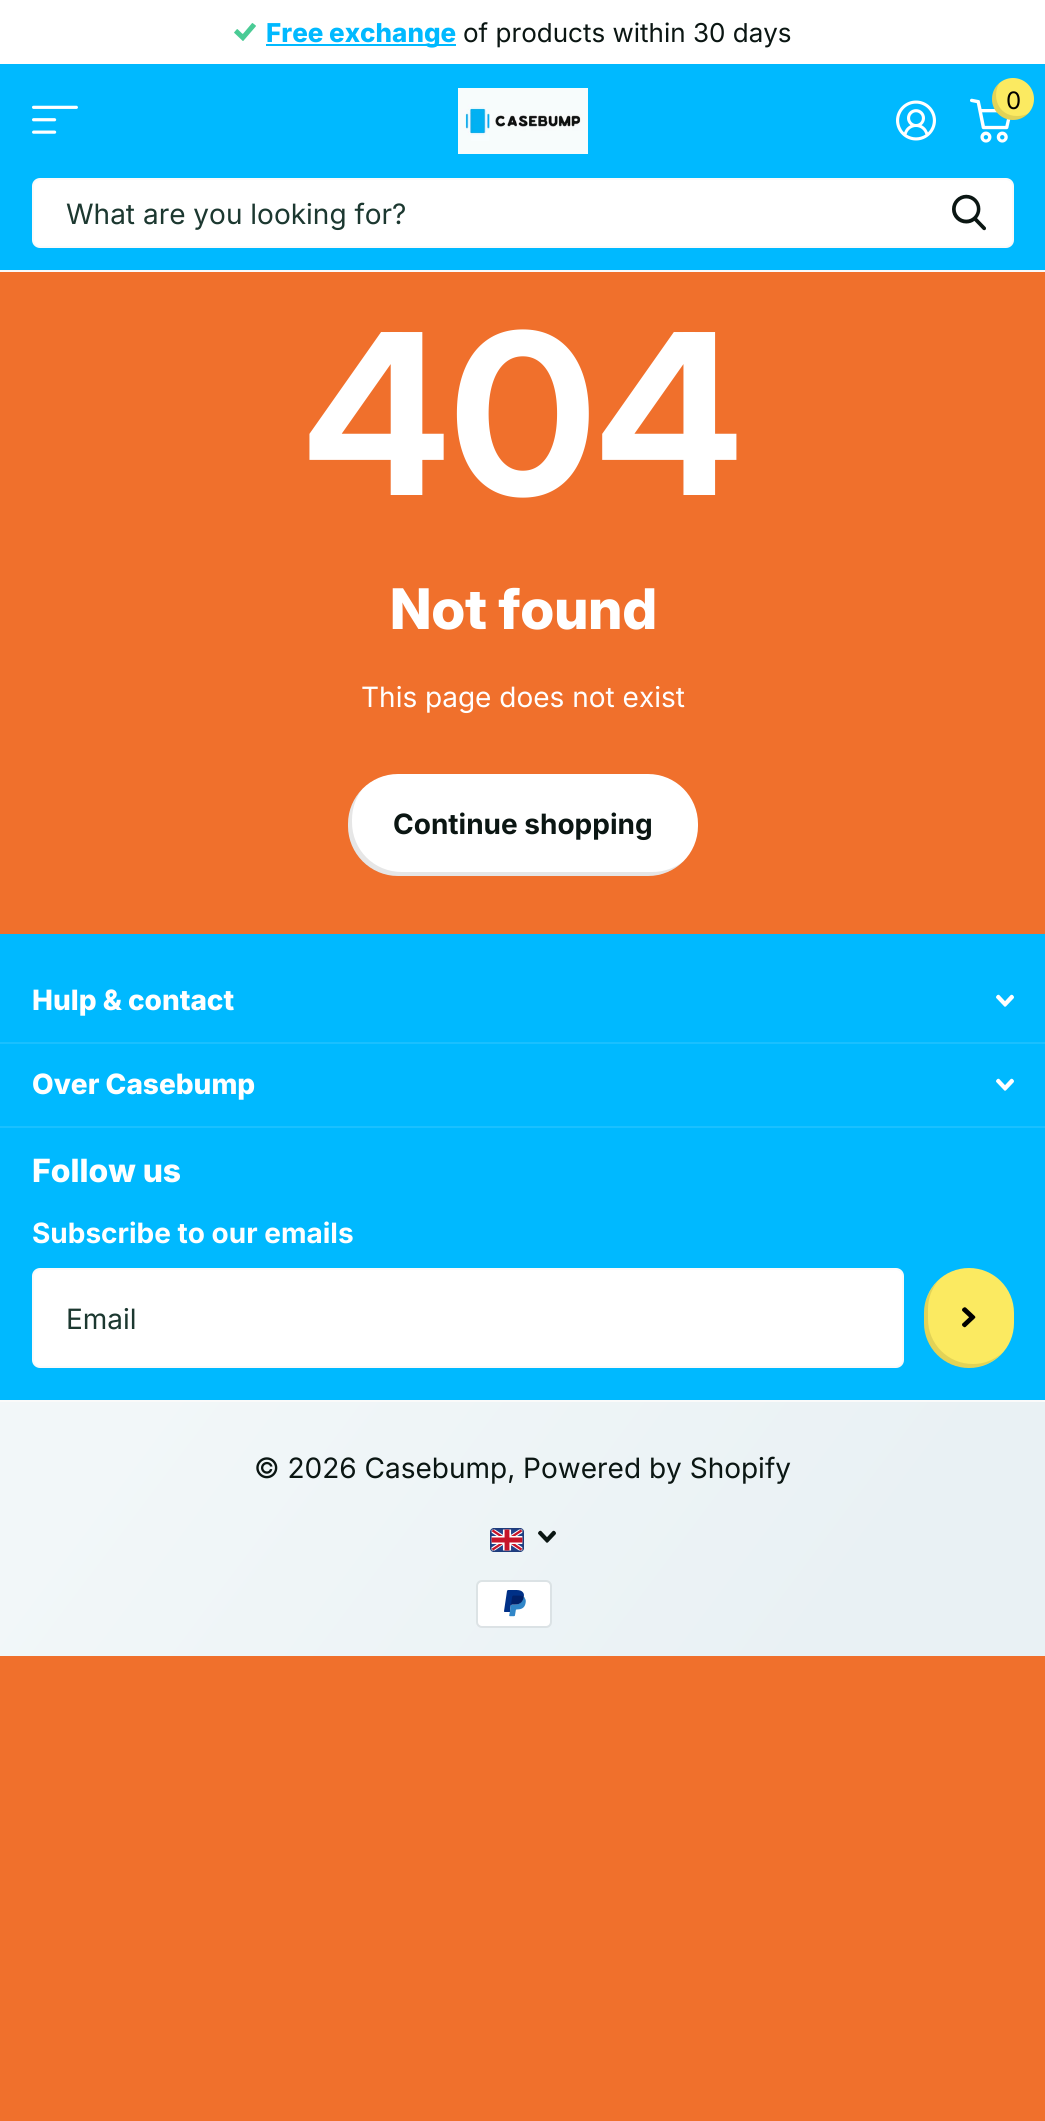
import math
import cairo

surface = cairo.ImageSurface(cairo.FORMAT_RGB24, 1045, 2121)
c = cairo.Context(surface)
options = cairo.FontOptions()
options.set_hint_metrics(cairo.HINT_METRICS_OFF)
options.set_hint_style(cairo.HINT_STYLE_NONE)
c.set_font_options(options)
c.set_miter_limit(4)
def C(code):
 c.set_source_rgb(*(v / 255 for v in bytes.fromhex(code[-6:])))
def F(family, size, italic, bold):
 c.select_font_face(family, cairo.FONT_SLANT_ITALIC if italic else cairo.FONT_SLANT_NORMAL, cairo.FONT_WEIGHT_BOLD if bold else cairo.FONT_WEIGHT_NORMAL)
 c.set_font_size(size)
def T(x, y, s):
 c.move_to(x, y)
 c.show_text(s)
def R(x, y, w, h):
 c.rectangle(x, y, w, h)
 c.fill()
def Q(x, y, w, h, r):
 c.new_sub_path()
 for i, (u, v) in enumerate([(x + w - r, y + h - r), (x + r, y + h - r), (x + r, y + r), (x + w - r, y + r)]):
  c.arc(u, v, r, i * math.pi / 2, (i + 1) * math.pi / 2)
 c.close_path()
def I(path, x, y, w, h):
 c.save()
 c.set_source_surface(cairo.ImageSurface.create_from_png(path), x, y)
 c.rectangle(x, y, w, h)
 c.fill()
 c.restore()
C('f0702c')
c.paint()
C('ffffff')
R(0,0,1045,64)
I('1.png',234,23,22,18)
C('00b9ff')
R(266,44,190,2)
F('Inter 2 ExtraBold',26,0,0)
T(266,42,'Free exchange')
F('Inter',26,0,0)
C('0b1613')
T(463,42,'of products within 30 days')
C('00b9ff')
R(0,64,1045,206)
I('2.png',458,88,130,66)
I('3.png',896,100,40,41)
I('4.png',970,98,41,45)
C('fbea61')
c.arc(1013,99,21,0,2 * math.pi)
c.fill()
c.set_source_rgba(0,0,0,0.1)
c.new_path()
c.move_to(1029,113)
c.curve_to(1025.5,115,1022,116,1017,116)
c.curve_to(997.5,116,991.5,95.5,999.5,83)
c.curve_to(990,91,989.5,105,998,114)
c.curve_to(1006.5,122.5,1021,122,1029,113)
c.close_path()
c.fill()
F('Inter',24,0,0)
C('000000')
T(1006,109,'0')
I('5.png',32,105,46,29)
C('ffffff')
Q(33,179,980,68,7)
c.fill_preserve()
C('fafafa')
c.stroke()
F('Inter',28,0,0)
C('1c3830')
T(66,224,'What are you looking for?')
I('6.png',952,194,34,37)
C('fafafa')
R(0,270,1045,2)
F('Inter',224,0,1)
C('ffffff')
T(303,495,'404')
F('Inter ExtraBold',56,0,0)
T(390,629,'Not found')
F('Inter',28,0,0)
T(361,707,'This page does not exist')
Q(348,774,350,102,50)
c.fill()
c.set_source_rgba(0,0,0,0.1)
c.new_path()
c.move_to(363,788)
c.curve_to(354,797,348,810,348,824)
c.line_to(348,826)
c.curve_to(348,854,370,876,398,876)
c.line_to(648,876)
c.curve_to(662,876,675,870,684,861)
c.curve_to(675,868,664,872,652,872)
c.line_to(402,872)
c.curve_to(374,872,352,850,352,822)
c.line_to(352,820)
c.curve_to(352,808,356,797,363,788)
c.close_path()
c.fill()
F('Inter 2',28,0,1)
C('0b1613')
T(393,834,'Continue shopping')
C('00b9ff')
R(0,934,1045,466)
F('Inter 2 ExtraBold',28,0,0)
C('ffffff')
T(32,1010,'Hulp & contact')
I('7.png',996,994,18,13)
C('1ac0ff')
R(0,1042,1045,2)
C('ffffff')
T(32,1094,'Over Casebump')
I('7.png',996,1078,18,13)
C('1ac0ff')
R(0,1126,1045,2)
F('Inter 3 ExtraBold',32,0,0)
C('ffffff')
T(32,1182,'Follow us')
F('Inter 2',28,0,1)
T(32,1243,'Subscribe to our emails')
Q(33,1269,870,98,7)
c.fill_preserve()
C('fafafa')
c.stroke()
F('Inter',28,0,0)
C('1c3830')
T(66,1329,'Email')
C('fbea61')
Q(924,1268,90,100,45)
c.fill()
c.set_source_rgba(0,0,0,0.1)
c.new_path()
c.move_to(939,1280)
c.curve_to(930,1288,924,1300,924,1313)
c.line_to(924,1323)
c.curve_to(924,1348,944,1368,969,1368)
c.curve_to(982,1368,994,1362,1002,1353)
c.curve_to(994,1360,984,1364,973,1364)
c.curve_to(948,1364,928,1344,928,1319)
c.line_to(928,1309)
c.curve_to(928,1298,932,1288,939,1280)
c.close_path()
c.fill()
I('8.png',962,1307,14,21)
gradient = cairo.LinearGradient(128,1232,918,1826)
gradient.add_color_stop_rgba(.11,0.949,0.969,0.976,1)
gradient.add_color_stop_rgba(.81,0.914,0.945,0.957,1)
c.set_source(gradient)
R(0,1402,1045,254)
C('fafafa')
R(0,1400,1045,2)
C('0b1613')
T(254,1478,'© 2026 Casebump, Powered by Shopify')
I('9.png',490,1528,34,24)
I('10.png',538,1530,18,13)
I('11.png',476,1580,76,48)
surface.write_to_png('o.png')
